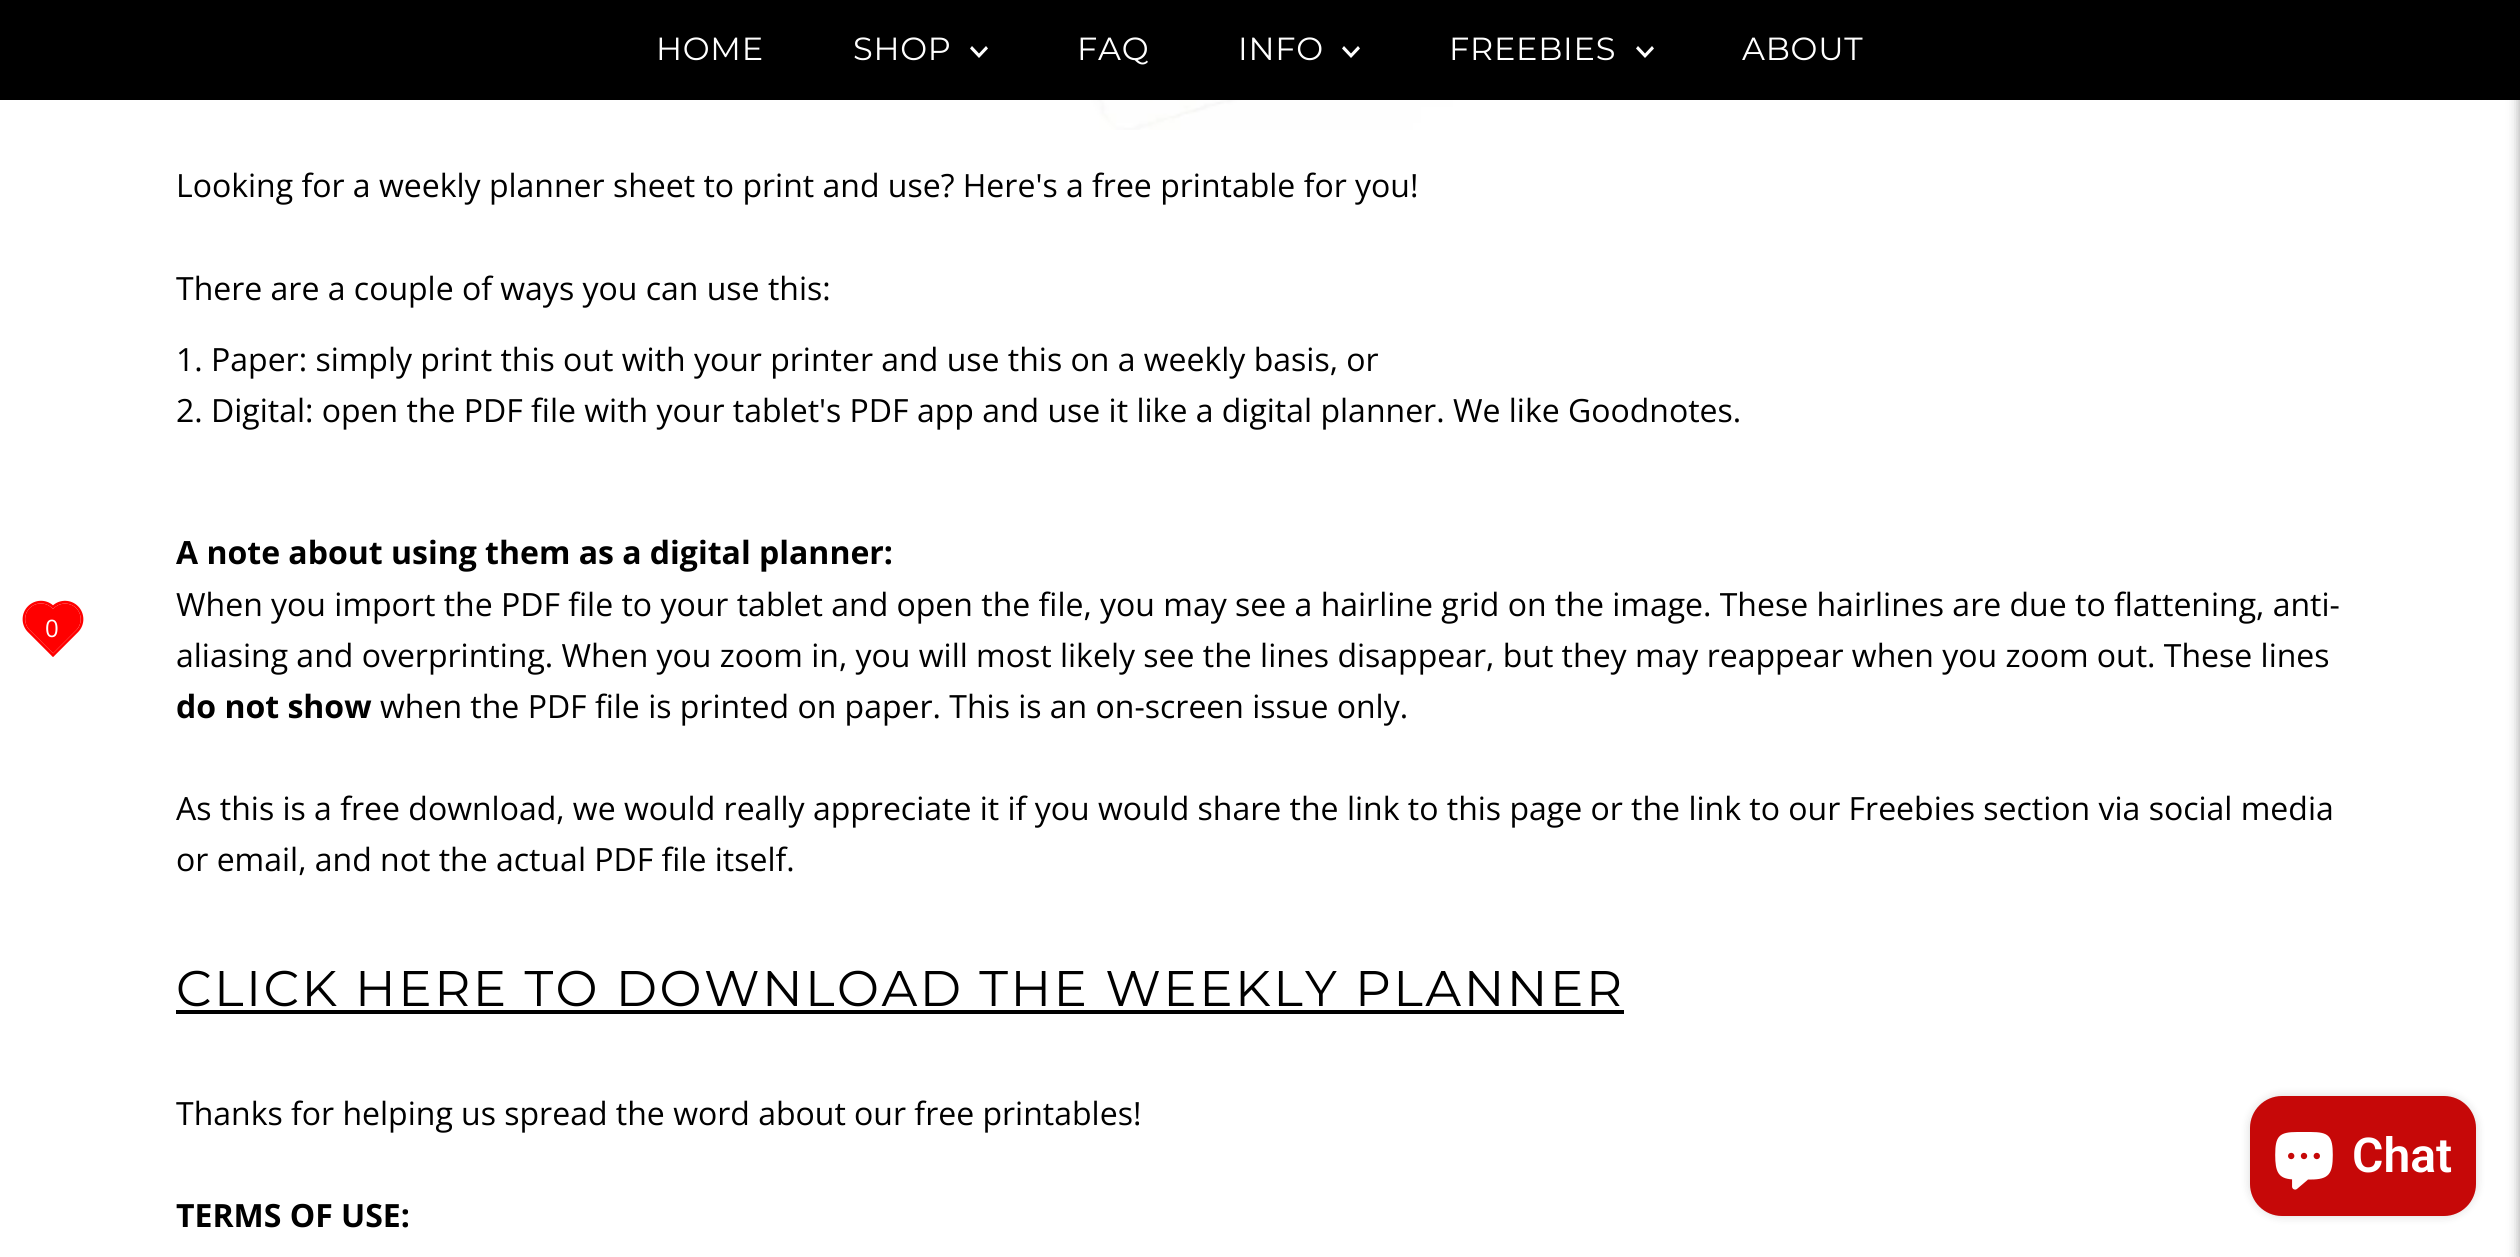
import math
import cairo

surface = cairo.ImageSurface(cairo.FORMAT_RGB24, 2520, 1257)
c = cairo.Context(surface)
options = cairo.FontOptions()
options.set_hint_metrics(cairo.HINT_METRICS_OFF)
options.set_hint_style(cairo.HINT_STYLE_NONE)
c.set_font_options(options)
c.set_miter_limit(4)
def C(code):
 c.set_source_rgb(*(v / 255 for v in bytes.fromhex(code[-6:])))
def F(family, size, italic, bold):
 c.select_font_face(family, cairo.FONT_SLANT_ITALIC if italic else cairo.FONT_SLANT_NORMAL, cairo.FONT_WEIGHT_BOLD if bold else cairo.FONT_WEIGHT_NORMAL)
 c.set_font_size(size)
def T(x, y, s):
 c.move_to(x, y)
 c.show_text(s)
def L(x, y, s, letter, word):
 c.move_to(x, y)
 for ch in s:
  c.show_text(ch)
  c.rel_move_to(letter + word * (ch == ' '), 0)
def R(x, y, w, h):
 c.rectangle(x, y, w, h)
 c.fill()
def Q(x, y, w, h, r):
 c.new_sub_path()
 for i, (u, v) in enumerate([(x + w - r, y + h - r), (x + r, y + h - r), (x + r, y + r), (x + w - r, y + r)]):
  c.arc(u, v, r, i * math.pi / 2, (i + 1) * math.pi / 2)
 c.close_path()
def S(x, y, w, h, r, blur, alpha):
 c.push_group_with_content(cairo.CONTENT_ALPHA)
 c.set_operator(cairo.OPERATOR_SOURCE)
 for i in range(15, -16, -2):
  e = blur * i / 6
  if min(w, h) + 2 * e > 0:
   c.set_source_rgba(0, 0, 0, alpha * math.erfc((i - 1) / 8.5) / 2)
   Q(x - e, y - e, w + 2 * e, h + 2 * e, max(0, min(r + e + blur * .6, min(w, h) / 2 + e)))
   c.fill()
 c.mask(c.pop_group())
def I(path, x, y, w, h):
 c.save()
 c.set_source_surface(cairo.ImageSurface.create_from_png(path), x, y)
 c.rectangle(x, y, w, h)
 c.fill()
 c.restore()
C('ffffff')
c.paint()
I('1.png',22,600,62,57)
F('Open Sans',24,0,0)
C('ffffff')
T(45,637,'0')
C('000000')
R(0,0,2520,100)
C('000000')
S(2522,0,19,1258,0,7,.5)
F('Montserrat',32,0,0)
C('ffffff')
L(656,60,'HOME',.75,0)
L(853,60,'SHOP',.75,0)
c.new_path()
c.move_to(986,46)
c.line_to(979,53.5)
c.line_to(972,46)
c.line_to(970,48.5)
c.line_to(979,58)
c.line_to(988,48.5)
c.close_path()
c.fill()
L(1077,60,'FAQ',.75,0)
L(1238,60,'INFO',.75,0)
c.new_path()
c.move_to(1358,46)
c.line_to(1351,53.5)
c.line_to(1344,46)
c.line_to(1342,48.5)
c.line_to(1351,58)
c.line_to(1360,48.5)
c.close_path()
c.fill()
L(1449,60,'FREEBIES',.75,0)
c.new_path()
c.move_to(1652,46)
c.line_to(1645,53.5)
c.line_to(1638,46)
c.line_to(1636,48.5)
c.line_to(1645,58)
c.line_to(1654,48.5)
c.close_path()
c.fill()
L(1742,60,'ABOUT',.75,0)
I('2.png',1067,100,506,30)
F('Open Sans',32,0,0)
C('000000')
T(176,197,'Looking for a weekly planner sheet to print and use? Here\'s a free printable for you!')
T(176,300,'There are a couple of ways you can use this:')
T(176,371,'1. Paper: simply print this out with your printer and use this on a weekly basis, or')
T(176,422,'2. Digital: open the PDF file with your tablet\'s PDF app and use it like a digital planner. We like Goodnotes.')
F('Open Sans',32,0,1)
T(176,564,'A note about using them as a digital planner:')
F('Open Sans',32,0,0)
T(176,616,'When you import the PDF file to your tablet and open the file, you may see a hairline grid on the image. These hairlines are due to flattening, anti-')
T(176,667,'aliasing and overprinting. When you zoom in, you will most likely see the lines disappear, but they may reappear when you zoom out. These lines')
F('Open Sans',32,0,1)
T(176,718,'do not show')
F('Open Sans',32,0,0)
T(380,718,'when the PDF file is printed on paper. This is an on-screen issue only.')
T(176,820,'As this is a free download, we would really appreciate it if you would share the link to this page or the link to our Freebies section via social media')
T(176,871,'or email, and not the actual PDF file itself.')
F('Montserrat',50,0,0)
L(176,1006,'CLICK HERE TO DOWNLOAD THE WEEKLY PLANNER',2.5,0)
R(176,1010,1448,4)
F('Open Sans',32,0,0)
T(176,1125,'Thanks for helping us spread the word about our free printables!')
F('Open Sans',32,0,1)
T(176,1227,'TERMS OF USE:')
C('000000')
S(2250,1096,226,120,32,5,.15)
C('c60808')
Q(2250,1096,226,120,32)
c.fill()
I('3.png',2275,1132,58,58)
F('Roboto SemiBold',48,0,0)
C('ffffff')
T(2352,1172,'Chat')
surface.write_to_png('o.png')
